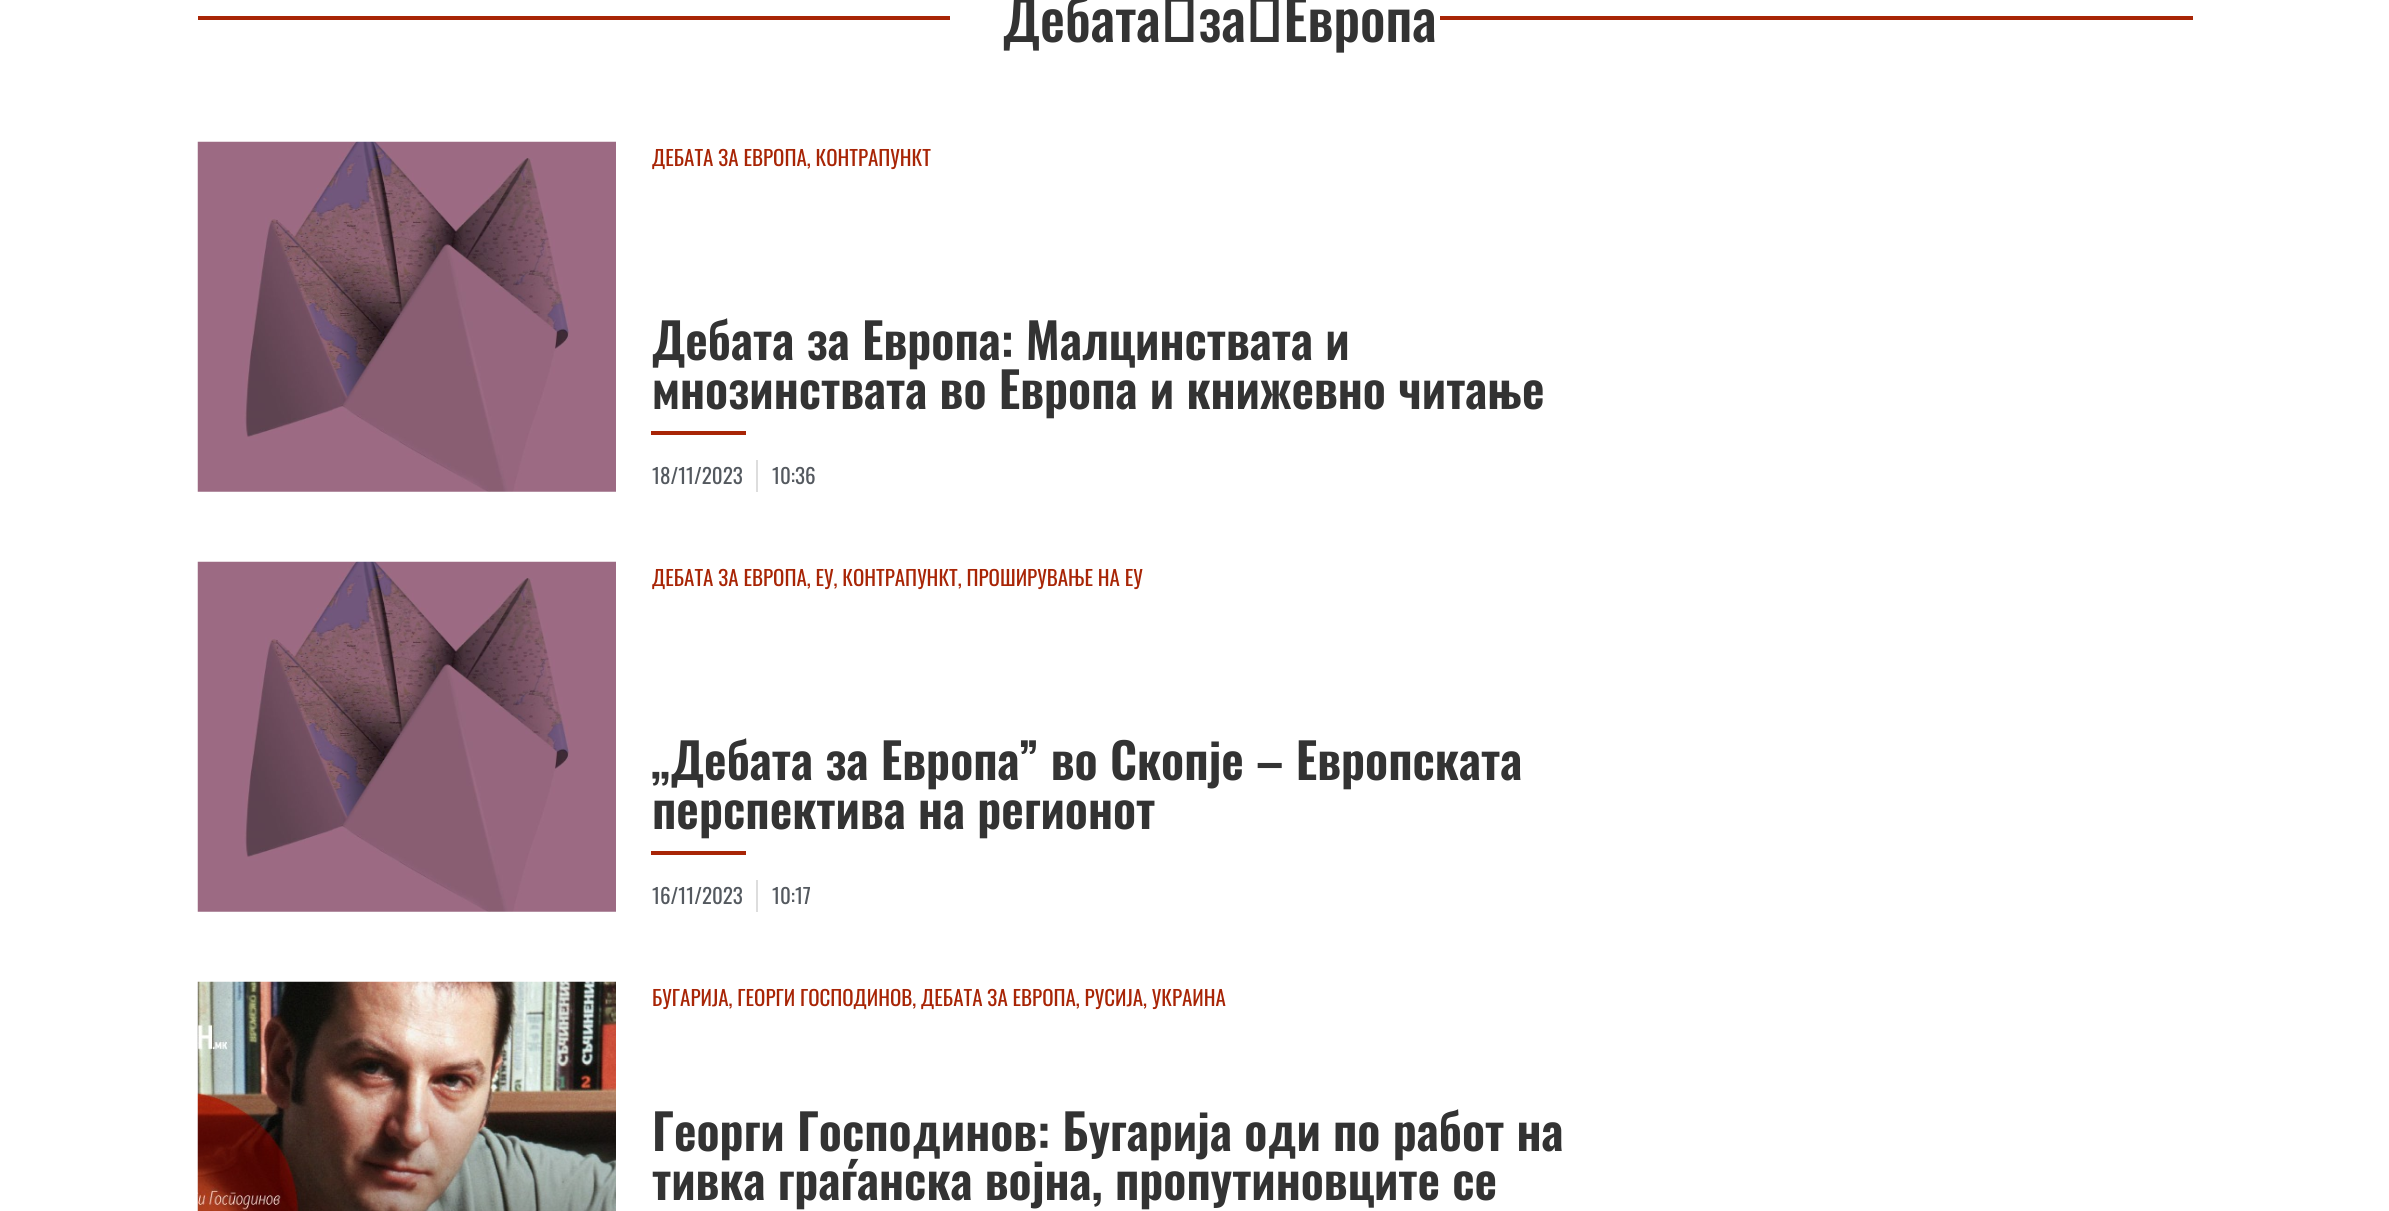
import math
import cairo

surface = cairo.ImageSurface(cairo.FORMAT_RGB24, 2389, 1211)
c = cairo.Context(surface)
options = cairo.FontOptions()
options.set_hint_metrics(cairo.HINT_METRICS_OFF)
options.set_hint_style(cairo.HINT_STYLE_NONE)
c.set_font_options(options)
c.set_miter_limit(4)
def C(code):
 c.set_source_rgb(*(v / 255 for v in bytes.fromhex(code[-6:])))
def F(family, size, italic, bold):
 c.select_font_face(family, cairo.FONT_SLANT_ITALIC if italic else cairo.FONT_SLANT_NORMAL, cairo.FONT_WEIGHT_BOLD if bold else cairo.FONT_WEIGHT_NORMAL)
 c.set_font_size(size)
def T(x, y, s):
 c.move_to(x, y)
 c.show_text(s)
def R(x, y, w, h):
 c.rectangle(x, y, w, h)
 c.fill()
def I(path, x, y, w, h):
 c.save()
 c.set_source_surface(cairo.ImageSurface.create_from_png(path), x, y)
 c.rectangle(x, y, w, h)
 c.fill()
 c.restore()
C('ffffff')
c.paint()
C('a82506')
R(198,16,752,4)
F('Oswald Medium',56,0,0)
C('333333')
T(1003,42,'Дебата за Европа')
C('a82506')
R(1440,16,753,4)
I('1.png',197,141,419,351)
F('Oswald',21,0,0)
T(652,166,'ДЕБАТА ЗА ЕВРОПА, КОНТРАПУНКТ')
F('Oswald SemiBold',49,0,0)
C('333333')
T(652,360,'Дебата за Европа: Малцинствата и')
T(652,409,'мнозинствата во Европа и книжевно читање')
C('a82506')
R(651,431,95,4)
F('Oswald',21,0,0)
C('54595f')
T(652,484,'18/11/2023')
C('dddddd')
R(756,460,2,32)
C('54595f')
T(772,484,'10:36')
I('2.png',197,561,419,351)
C('a82506')
T(652,586,'ДЕБАТА ЗА ЕВРОПА, ЕУ, КОНТРАПУНКТ, ПРОШИРУВАЊЕ НА ЕУ')
F('Oswald SemiBold',49,0,0)
C('333333')
T(652,780,'„Дебата за Европа” во Скопје – Европската')
T(652,829,'перспектива на регионот')
C('a82506')
R(651,851,95,4)
F('Oswald',21,0,0)
C('54595f')
T(652,904,'16/11/2023')
C('dddddd')
R(756,880,2,32)
C('54595f')
T(772,904,'10:17')
I('3.png',197,981,419,230)
C('a82506')
T(652,1006,'БУГАРИЈА, ГЕОРГИ ГОСПОДИНОВ, ДЕБАТА ЗА ЕВРОПА, РУСИЈА, УКРАИНА')
F('Oswald SemiBold',49,0,0)
C('333333')
T(652,1151,'Георги Господинов: Бугарија оди по работ на')
T(652,1200,'тивка граѓанска војна, пропутиновците се')
surface.write_to_png('o.png')
